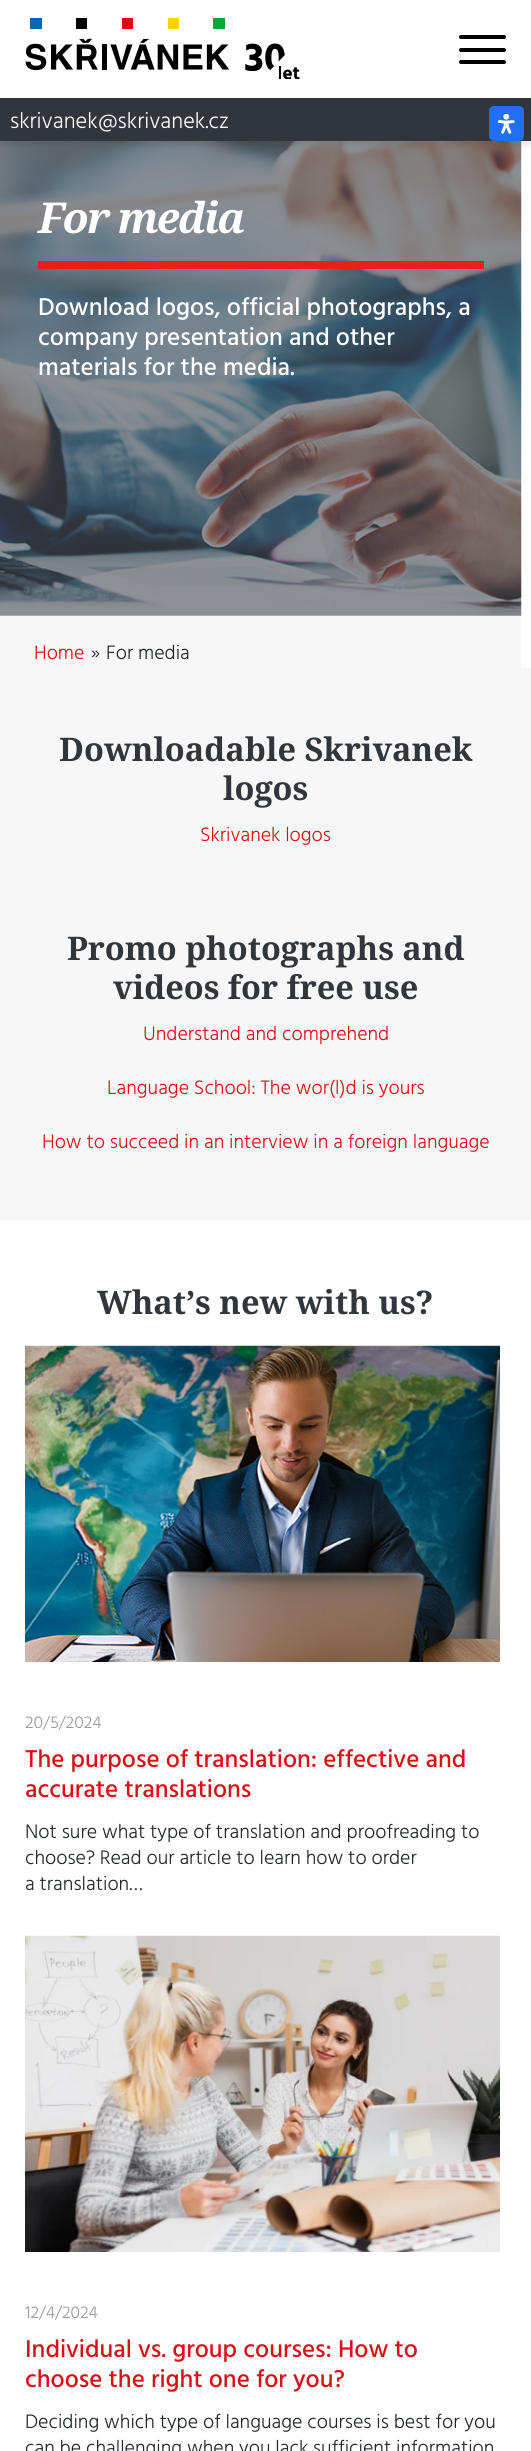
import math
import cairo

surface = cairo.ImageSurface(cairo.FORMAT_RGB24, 531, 2451)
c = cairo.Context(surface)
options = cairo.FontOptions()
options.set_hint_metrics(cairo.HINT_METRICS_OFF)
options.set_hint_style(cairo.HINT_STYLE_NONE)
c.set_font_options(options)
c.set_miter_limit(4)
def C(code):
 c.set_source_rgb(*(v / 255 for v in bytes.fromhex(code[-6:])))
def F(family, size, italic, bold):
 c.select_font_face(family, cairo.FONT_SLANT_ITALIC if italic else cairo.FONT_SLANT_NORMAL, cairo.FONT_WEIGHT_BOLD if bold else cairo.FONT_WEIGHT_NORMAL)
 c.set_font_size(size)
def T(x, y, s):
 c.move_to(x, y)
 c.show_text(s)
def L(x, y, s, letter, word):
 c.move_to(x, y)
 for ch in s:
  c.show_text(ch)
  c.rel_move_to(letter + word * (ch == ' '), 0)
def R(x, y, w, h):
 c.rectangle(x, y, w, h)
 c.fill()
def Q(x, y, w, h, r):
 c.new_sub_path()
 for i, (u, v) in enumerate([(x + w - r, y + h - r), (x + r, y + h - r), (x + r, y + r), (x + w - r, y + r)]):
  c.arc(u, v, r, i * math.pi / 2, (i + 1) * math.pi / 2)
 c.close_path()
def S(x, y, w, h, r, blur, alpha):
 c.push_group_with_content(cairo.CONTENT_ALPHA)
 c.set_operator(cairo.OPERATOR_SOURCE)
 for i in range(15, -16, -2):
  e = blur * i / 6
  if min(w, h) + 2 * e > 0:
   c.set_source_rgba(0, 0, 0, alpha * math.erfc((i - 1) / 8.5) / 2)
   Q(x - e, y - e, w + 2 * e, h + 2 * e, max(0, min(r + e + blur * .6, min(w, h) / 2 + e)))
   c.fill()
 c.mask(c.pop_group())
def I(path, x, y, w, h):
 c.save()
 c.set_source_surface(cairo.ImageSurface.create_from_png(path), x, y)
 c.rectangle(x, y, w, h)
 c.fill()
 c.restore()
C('ffffff')
c.paint()
I('3.png',0,141,522,475)
C('000000')
S(0,1,531,144,0,3,.1)
C('ffffff')
R(0,0,531,98)
I('1.png',25,18,275,61)
C('000000')
Q(459,48,47,4,2)
c.fill()
Q(459,35,47,4,2)
c.fill()
Q(459,60,47,4,2)
c.fill()
C('31363c')
R(0,98,531,43)
F('Hind Light',22.5,0,0)
C('ffffff')
T(10,128,'skrivanek@skrivanek.cz')
C('216ff3')
Q(489,106,35,35,5)
c.fill()
I('2.png',497,114,18,20)
C('ed1b23')
R(38,261,446,8)
F('Noto Serif',42.5,1,1)
C('ffffff')
L(38,233,'For media',-1.9,0)
F('Hind Medium',25,0,0)
T(38,315,'Download logos, official photographs, a')
T(38,345,'company presentation and other')
T(38,375,'materials for the media.')
C('f7f7f7')
R(0,616,521,52)
F('Hind Light',20,0,0)
C('dd0e16')
T(34,659,'Home')
C('212529')
T(91,659,'»')
T(106,659,'For media')
C('f7f7f7')
R(0,668,531,552)
F('Noto Serif',32.5,0,1)
C('31363c')
T(59,761,'Downloadable Skrivanek')
T(223,800,'logos')
F('Hind Light',20,0,0)
C('dd0e16')
T(200,841,'Skrivanek logos')
F('Noto Serif',32.5,0,1)
C('31363c')
T(67,960,'Promo photographs and')
T(113,999,'videos for free use')
F('Hind Light',20,0,0)
C('dd0e16')
T(143,1040,'Understand and comprehend')
T(107,1094,'Language School: The wor(l)d is yours')
T(42,1148,'How to succeed in an interview in a foreign language')
F('Noto Serif',32.5,0,1)
C('31363c')
T(97,1314,'What’s new with us?')
I('4.png',25,1345,475,317)
F('Hind Light',17.5,0,0)
C('999999')
T(25,1728,'20/5/2024')
F('Hind Medium',25,0,0)
C('dd0e16')
T(25,1767,'The purpose of translation: effective and')
T(25,1797,'accurate translations')
F('Hind Light',20,0,0)
C('212529')
T(25,1838,'Not sure what type of translation and proofreading to')
T(25,1864,'choose? Read our article to learn how to order')
T(25,1890,'a translation…')
I('5.png',25,1935,475,317)
F('Hind Light',17.5,0,0)
C('999999')
T(25,2318,'12/4/2024')
F('Hind Medium',25,0,0)
C('dd0e16')
T(25,2357,'Individual vs. group courses: How to')
T(25,2387,'choose the right one for you?')
F('Hind Light',20,0,0)
C('212529')
T(25,2428,'Deciding which type of language courses is best for you')
T(25,2454,'can be challenging when you lack sufficient information')
surface.write_to_png('o.png')
